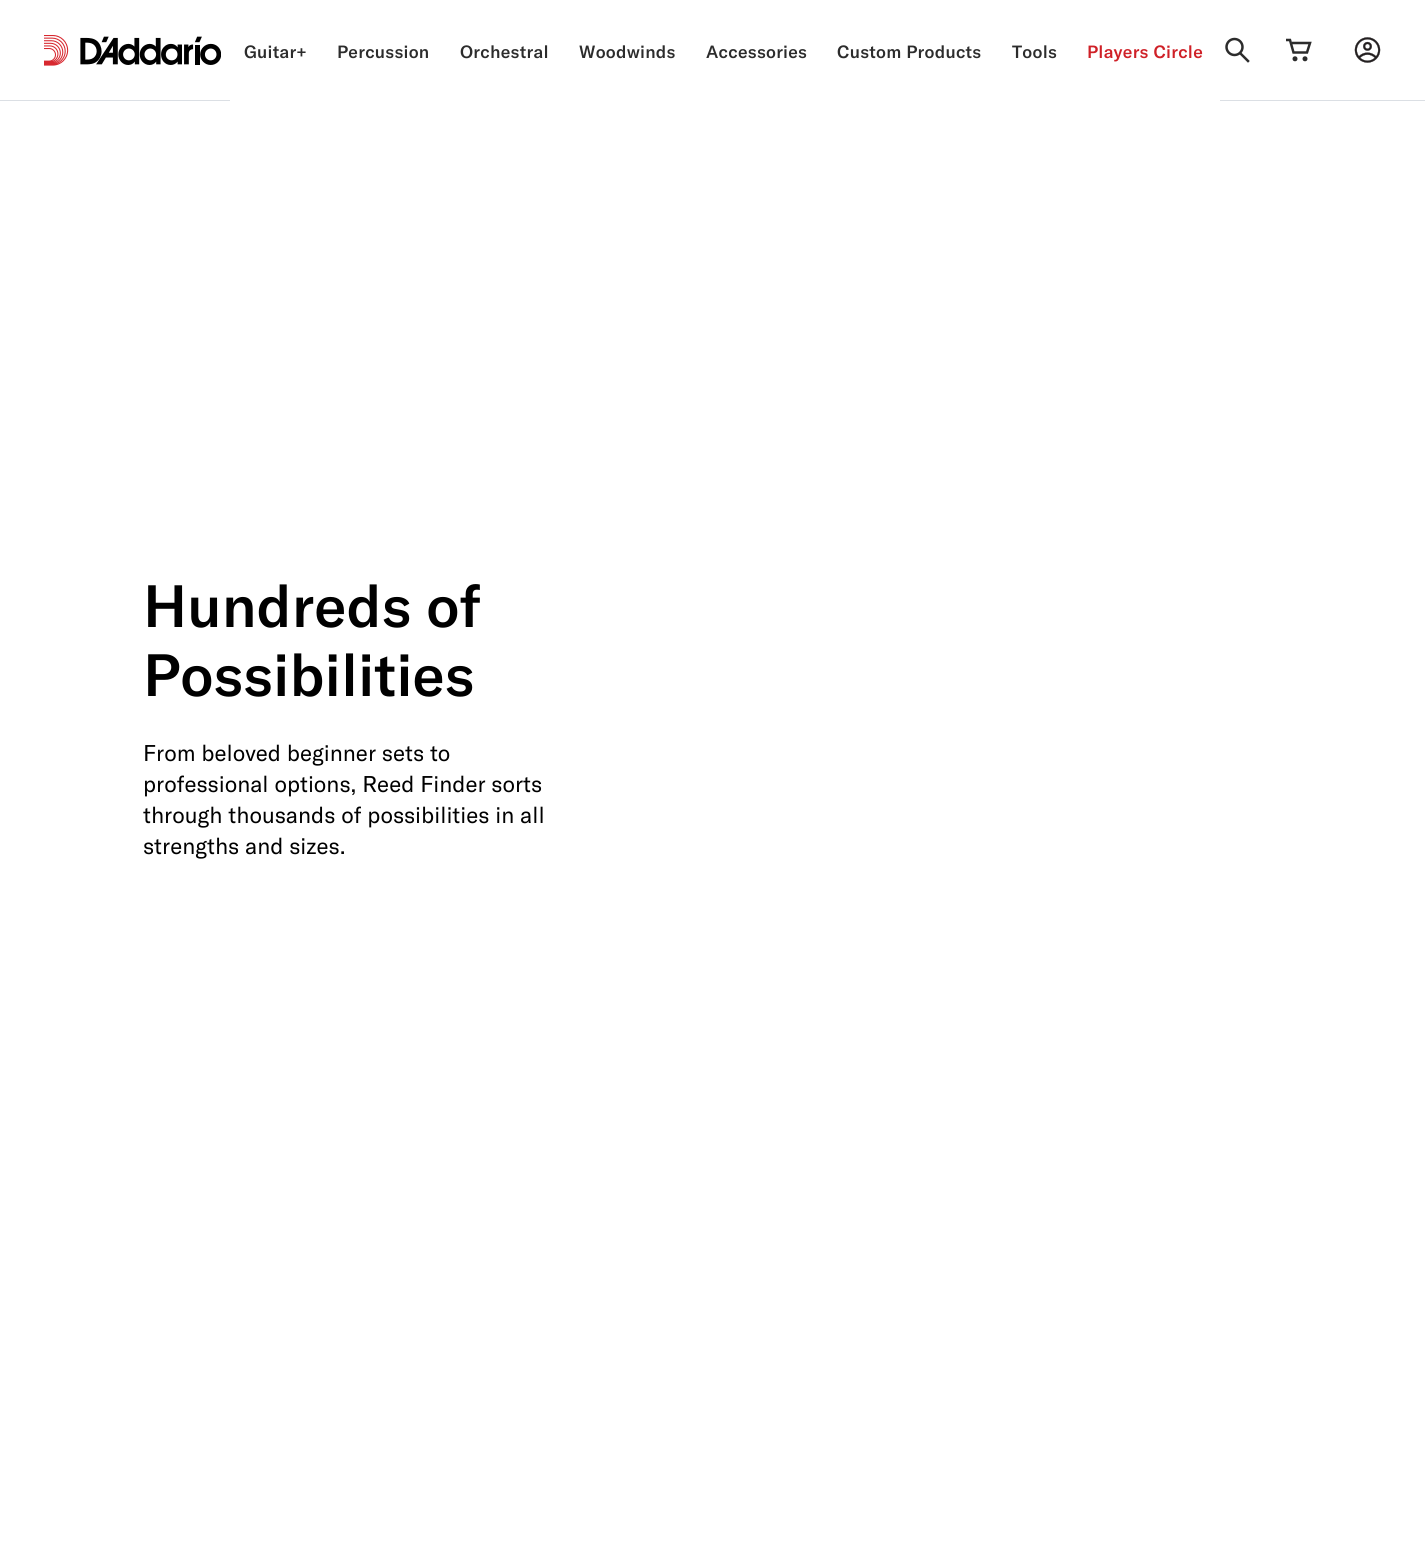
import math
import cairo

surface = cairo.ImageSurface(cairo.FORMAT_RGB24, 1425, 1553)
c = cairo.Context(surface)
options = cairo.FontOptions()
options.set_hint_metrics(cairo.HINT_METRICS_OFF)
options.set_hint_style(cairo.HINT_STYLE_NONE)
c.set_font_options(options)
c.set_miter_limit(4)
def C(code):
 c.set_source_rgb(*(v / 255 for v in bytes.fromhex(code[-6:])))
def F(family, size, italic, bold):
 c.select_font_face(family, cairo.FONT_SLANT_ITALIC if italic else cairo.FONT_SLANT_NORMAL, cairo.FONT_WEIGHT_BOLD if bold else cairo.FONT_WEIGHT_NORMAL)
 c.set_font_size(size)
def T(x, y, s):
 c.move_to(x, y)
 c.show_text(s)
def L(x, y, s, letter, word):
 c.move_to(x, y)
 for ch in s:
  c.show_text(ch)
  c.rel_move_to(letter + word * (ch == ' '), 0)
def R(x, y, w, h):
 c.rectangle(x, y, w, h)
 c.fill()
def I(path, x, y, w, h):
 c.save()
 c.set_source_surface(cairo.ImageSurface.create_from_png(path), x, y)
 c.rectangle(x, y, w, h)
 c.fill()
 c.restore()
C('ffffff')
c.paint()
C('dbdfe4')
R(0,100,1425,1)
I('1.png',44,35,25,31)
I('2.png',80,36,141,29)
C('ffffff')
R(230,100,990,1)
F('GT America Medium',17.5,0,0)
C('2c2c2c')
L(244,58,'Guitar+',.25,0)
L(337,58,'Percussion',.25,0)
L(460,58,'Orchestral',.25,0)
L(579,58,'Woodwinds',.25,0)
L(706,58,'Accessories',.25,0)
L(837,58,'Custom Products',.25,0)
L(1012,58,'Tools',.25,0)
C('cf2027')
L(1087,58,'Players Circle',.25,0)
c.new_path()
c.arc(1234.5,47,8,0,2 * math.pi)
C('2c2c2c')
c.set_line_width(2.5)
c.stroke()
c.new_path()
c.move_to(1248,61)
c.line_to(1241,54)
c.set_line_cap(cairo.LINE_CAP_SQUARE)
c.stroke()
c.arc(1295,58.8,2.5,0,2 * math.pi)
c.fill()
c.arc(1305,58.8,2.5,0,2 * math.pi)
c.fill()
c.new_path()
c.move_to(1286,40)
c.line_to(1290,40)
c.line_to(1293.5,52.5)
c.line_to(1307,52.5)
c.line_to(1310,43)
c.line_to(1292,43)
c.set_line_cap(cairo.LINE_CAP_BUTT)
c.stroke()
I('3.png',1354,37,27,26)
F('GT America Medium',58.75,0,0)
C('000000')
T(143,627,'Hundreds of')
T(143,696,'Possibilities')
F('GT America',22.5,0,0)
T(143,761,'From beloved beginner sets to')
T(143,792,'professional options, Reed Finder sorts')
T(143,823,'through thousands of possibilities in all')
T(143,854,'strengths and sizes.')
surface.write_to_png('o.png')
